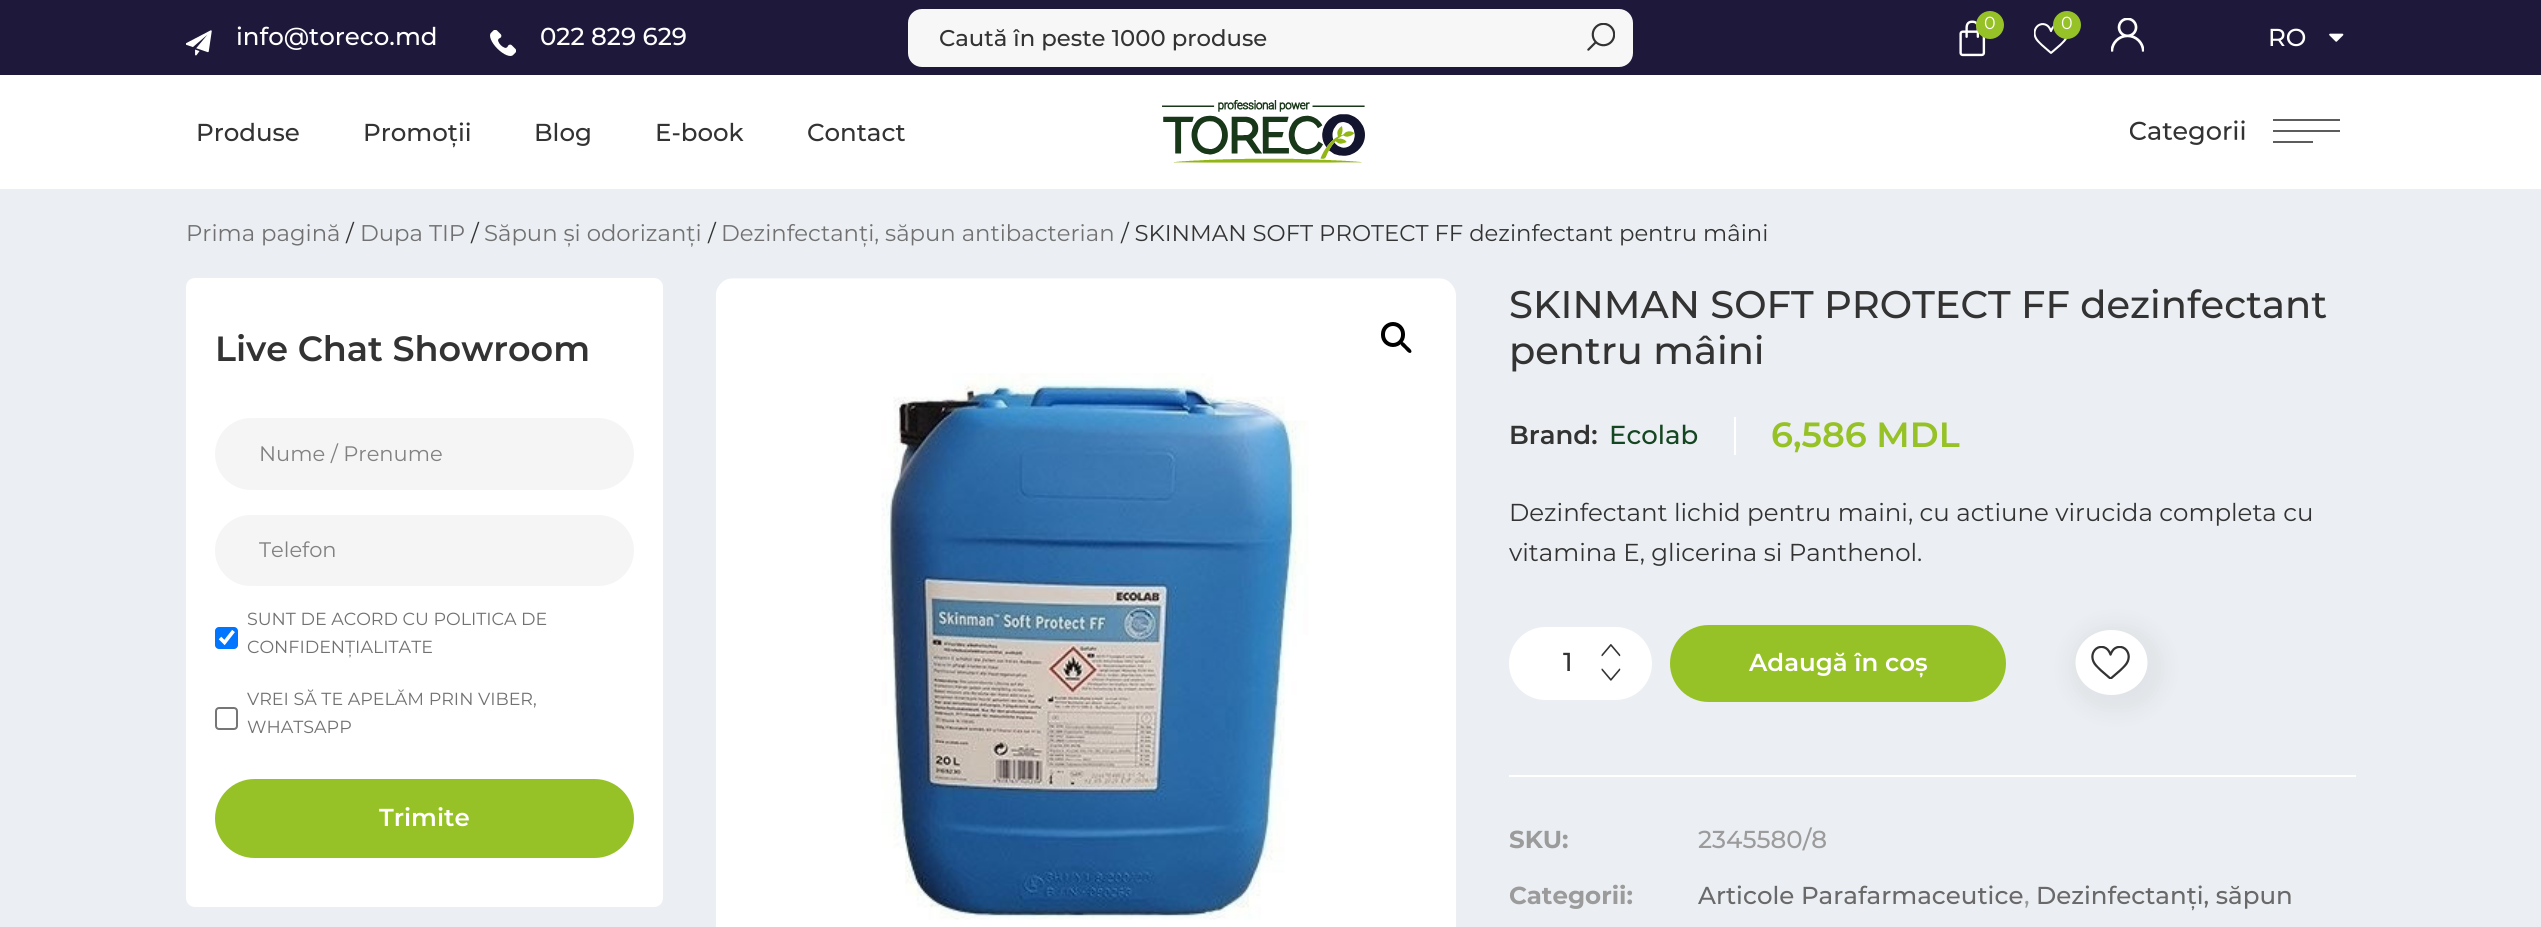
import math
import cairo

surface = cairo.ImageSurface(cairo.FORMAT_RGB24, 2541, 927)
c = cairo.Context(surface)
options = cairo.FontOptions()
options.set_hint_metrics(cairo.HINT_METRICS_OFF)
options.set_hint_style(cairo.HINT_STYLE_NONE)
c.set_font_options(options)
c.set_miter_limit(4)
def C(code):
 c.set_source_rgb(*(v / 255 for v in bytes.fromhex(code[-6:])))
def F(family, size, italic, bold):
 c.select_font_face(family, cairo.FONT_SLANT_ITALIC if italic else cairo.FONT_SLANT_NORMAL, cairo.FONT_WEIGHT_BOLD if bold else cairo.FONT_WEIGHT_NORMAL)
 c.set_font_size(size)
def T(x, y, s):
 c.move_to(x, y)
 c.show_text(s)
def R(x, y, w, h):
 c.rectangle(x, y, w, h)
 c.fill()
def Q(x, y, w, h, r):
 c.new_sub_path()
 for i, (u, v) in enumerate([(x + w - r, y + h - r), (x + r, y + h - r), (x + r, y + r), (x + w - r, y + r)]):
  c.arc(u, v, r, i * math.pi / 2, (i + 1) * math.pi / 2)
 c.close_path()
def S(x, y, w, h, r, blur, alpha):
 c.push_group_with_content(cairo.CONTENT_ALPHA)
 c.set_operator(cairo.OPERATOR_SOURCE)
 for i in range(15, -16, -2):
  e = blur * i / 6
  if min(w, h) + 2 * e > 0:
   c.set_source_rgba(0, 0, 0, alpha * math.erfc((i - 1) / 8.5) / 2)
   Q(x - e, y - e, w + 2 * e, h + 2 * e, max(0, min(r + e + blur * .6, min(w, h) / 2 + e)))
   c.fill()
 c.mask(c.pop_group())
def I(path, x, y, w, h):
 c.save()
 c.set_source_surface(cairo.ImageSurface.create_from_png(path), x, y)
 c.rectangle(x, y, w, h)
 c.fill()
 c.restore()
C('ebeef2')
c.paint()
C('1e193b')
R(0,0,2541,75)
I('1.png',186,30,26,26)
F('Montserrat Medium',24.5,0,0)
C('ffffff')
T(236,45,'info@toreco.md')
I('2.png',490,30,26,26)
T(540,45,'022 829 629')
C('f7f7f7')
Q(908,9,725,58,14)
c.fill()
F('Montserrat Medium',22.75,0,0)
C('333333')
T(939,46,'Caută în peste 1000 produse')
I('3.png',1587,23,28,28)
I('4.png',1959,20,27,37)
C('96c227')
c.arc(1990,25,14,0,2 * math.pi)
c.fill()
F('Montserrat',17.5,0,0)
C('ffffff')
T(1984,29,'0')
I('5.png',2034,23,34,31)
C('96c227')
c.arc(2067,25,14,0,2 * math.pi)
c.fill()
C('ffffff')
T(2061,29,'0')
I('6.png',2111,18,33,34)
F('Montserrat Medium',24.5,0,0)
T(2268,46,'RO')
I('7.png',2329,33,15,9)
R(0,75,2541,114)
C('333333')
T(196,141,'Produse')
T(363,141,'Promoții')
T(534,141,'Blog')
T(655,141,'E-book')
T(807,141,'Contact')
I('8.png',1162,100,203,63)
I('9.png',2130,119,210,26)
F('Montserrat',22.75,0,0)
C('717171')
T(186,241,'Prima pagină')
C('333333')
T(346,241,'/')
C('717171')
T(360,241,'Dupa TIP')
C('333333')
T(471,241,'/')
C('717171')
T(484,241,'Săpun și odorizanți')
C('333333')
T(708,241,'/')
C('717171')
T(721,241,'Dezinfectanți, săpun antibacterian')
C('333333')
T(1121,241,'/ SKINMAN SOFT PROTECT FF dezinfectant pentru mâini')
C('ffffff')
Q(186,278,477,629,9)
c.fill()
F('Montserrat SemiBold',35,0,0)
C('333333')
T(215,361,'Live Chat Showroom')
C('f5f5f5')
Q(215,418,419,72,36)
c.fill()
F('Montserrat',21,0,0)
C('818181')
T(259,461,'Nume / Prenume')
C('f5f5f5')
Q(215,515,419,71,35.5)
c.fill()
C('818181')
T(259,557,'Telefon')
C('0075ff')
Q(215,627,23,22,4)
c.fill()
c.new_path()
c.move_to(220,638)
c.line_to(224.5,642.5)
c.line_to(233.5,631)
C('ffffff')
c.set_line_width(3.6)
c.stroke()
F('Montserrat',17.5,0,0)
C('717171')
T(247,625,'SUNT DE ACORD CU POLITICA DE')
T(247,653,'CONFIDENȚIALITATE')
Q(216,708,21,21,3)
C('767676')
c.set_line_width(2)
c.stroke()
C('717171')
T(247,705,'VREI SĂ TE APELĂM PRIN VIBER,')
T(247,733,'WHATSAPP')
C('96c227')
Q(215,779,419,79,39.5)
c.fill()
F('Montserrat SemiBold',24.5,0,0)
C('ffffff')
T(379,826,'Trimite')
I('10.png',716,278,740,649)
Q(1383,324,20,21,10)
C('000000')
c.set_line_width(4)
c.stroke()
c.new_path()
c.move_to(1401,342.5)
c.curve_to(1403,340.5,1406,345,1407,346)
c.curve_to(1408,347,1413,350.5,1411,352.5)
c.curve_to(1409,354.5,1405.5,349.5,1404.5,348.5)
c.curve_to(1403.5,347.5,1399,344.5,1401,342.5)
c.close_path()
c.fill()
F('Montserrat Medium',38.5,0,0)
C('333333')
T(1509,318,'SKINMAN SOFT PROTECT FF dezinfectant')
T(1509,364,'pentru mâini')
C('ffffff')
R(1734,417,2,38)
F('Montserrat SemiBold',26,0,0)
C('333333')
T(1509,444,'Brand:')
F('Montserrat Medium',26,0,0)
C('154622')
T(1609,444,'Ecolab')
F('Montserrat SemiBold',35,0,0)
C('96c227')
T(1771,447,'6,586 MDL')
F('Montserrat',24.5,0,0)
C('333333')
T(1509,521,'Dezinfectant lichid pentru maini, cu actiune virucida completa cu')
T(1509,561,'vitamina E, glicerina si Panthenol.')
C('ffffff')
Q(1509,627,143,73,36.5)
c.fill()
I('11.png',1601,644,20,13)
F('Montserrat Medium',26,0,0)
C('333333')
T(1563,671,'1')
I('12.png',1601,668,20,13)
C('96c227')
Q(1670,625,336,77,38.5)
c.fill()
F('Montserrat SemiBold',24.5,0,0)
C('ffffff')
T(1749,671,'Adaugă în coș')
C('000000')
S(2070,625,93,86,43,10.5,.05)
C('ffffff')
c.new_path()
c.move_to(2111.5,630)
c.curve_to(2131.5,630,2147.5,644.5,2147.5,662.5)
c.curve_to(2147.5,680.5,2131.5,695,2111.5,695)
c.curve_to(2091.5,695,2075.5,680.5,2075.5,662.5)
c.curve_to(2075.5,644.5,2091.5,630,2111.5,630)
c.close_path()
c.fill()
I('13.png',2091,646,39,33)
R(1509,775,847,2)
F('Montserrat',24.5,0,1)
C('9b9b9b')
T(1509,848,'SKU:')
F('Montserrat Medium',24.5,0,0)
T(1698,848,'2345580/8')
F('Montserrat',24.5,0,1)
T(1509,904,'Categorii:')
F('Montserrat Medium',24.5,0,0)
C('696969')
T(1698,904,'Articole Parafarmaceutice')
C('9b9b9b')
T(2024,904,',')
C('696969')
T(2036,904,'Dezinfectanți, săpun')
surface.write_to_png('o.png')
